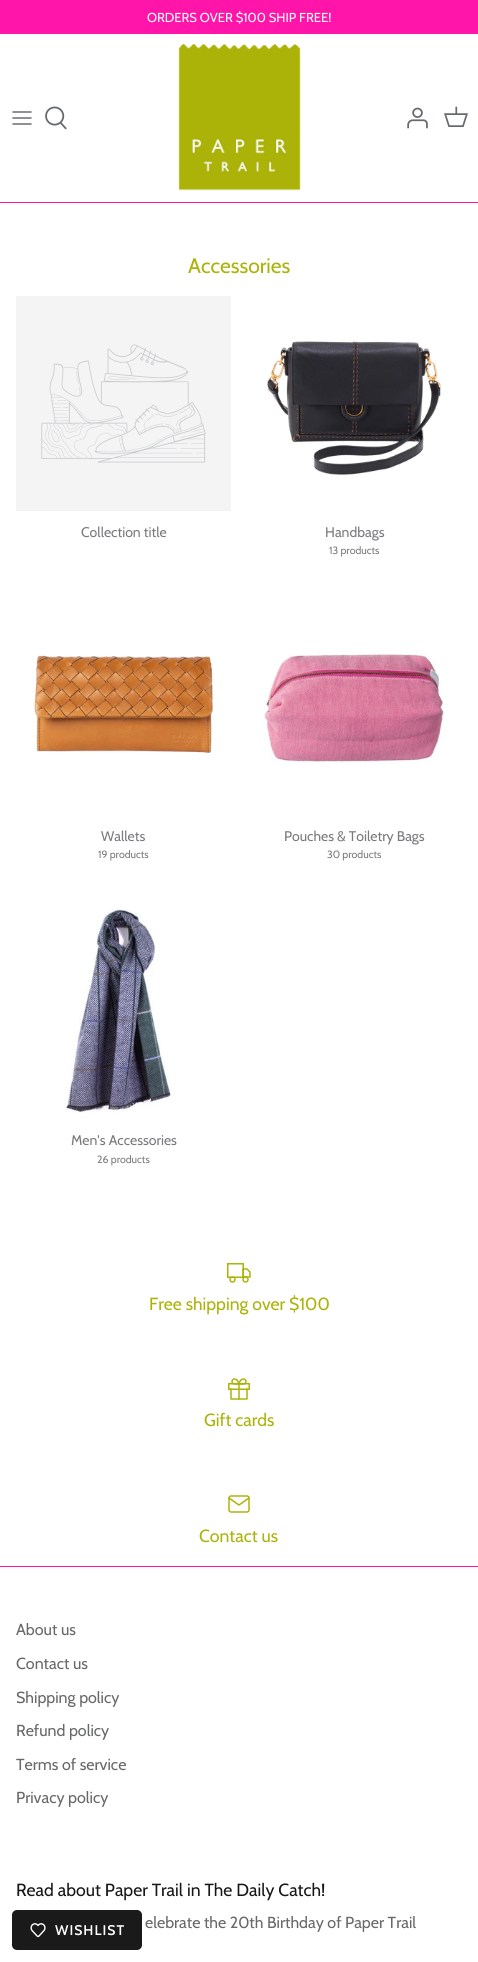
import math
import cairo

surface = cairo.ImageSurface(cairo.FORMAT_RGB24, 478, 1962)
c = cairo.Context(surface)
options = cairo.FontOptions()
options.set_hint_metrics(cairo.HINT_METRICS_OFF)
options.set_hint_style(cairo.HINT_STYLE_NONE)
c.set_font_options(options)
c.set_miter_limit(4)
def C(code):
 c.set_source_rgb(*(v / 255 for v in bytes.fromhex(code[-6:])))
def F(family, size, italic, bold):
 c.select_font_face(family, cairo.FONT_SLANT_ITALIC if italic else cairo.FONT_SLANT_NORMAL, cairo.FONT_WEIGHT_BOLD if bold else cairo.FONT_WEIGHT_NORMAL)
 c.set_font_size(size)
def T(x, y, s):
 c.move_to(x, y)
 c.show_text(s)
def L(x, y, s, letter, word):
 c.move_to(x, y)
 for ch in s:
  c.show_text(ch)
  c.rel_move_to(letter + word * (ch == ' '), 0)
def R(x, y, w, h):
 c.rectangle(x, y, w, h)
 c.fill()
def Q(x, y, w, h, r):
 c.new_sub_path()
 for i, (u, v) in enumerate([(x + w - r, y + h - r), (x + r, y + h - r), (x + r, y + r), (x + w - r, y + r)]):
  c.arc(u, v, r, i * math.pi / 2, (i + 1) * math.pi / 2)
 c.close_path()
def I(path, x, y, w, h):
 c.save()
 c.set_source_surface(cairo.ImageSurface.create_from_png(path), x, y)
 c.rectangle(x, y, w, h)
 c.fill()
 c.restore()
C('ffffff')
c.paint()
C('ff15aa')
R(0,0,478,34)
F('Cabin',13,0,0)
C('ffffff')
T(147,22,'ORDERS OVER $100 SHIP FREE!')
C('ff15aa')
R(0,202,478,1)
I('1.png',12,111,20,14)
I('2.png',45,106,22,24)
I('3.png',178,44,123,147)
I('4.png',407,107,21,22)
I('5.png',444,106,24,21)
F('Cabin',21,0,0)
C('abb308')
T(188,273,'Accessories')
C('f4f4f4')
R(16,296,215,215)
I('6.png',41,344,165,119)
F('Cabin',14,0,0)
C('787a7c')
T(81,537,'Collection title')
I('7.png',267,341,174,134)
T(325,537,'Handbags')
F('Cabin',10.5,0,0)
T(329,554,'13 products')
I('8.png',34,655,179,98)
F('Cabin',14,0,0)
T(101,841,'Wallets')
F('Cabin',10.5,0,0)
T(98,858,'19 products')
I('9.png',264,654,181,109)
F('Cabin',14,0,0)
T(284,841,'Pouches & Toiletry Bags')
F('Cabin',10.5,0,0)
T(327,858,'30 products')
I('10.png',62,909,109,205)
F('Cabin',14,0,0)
T(71,1145,'Men\'s Accessories')
F('Cabin',10.5,0,0)
T(97,1163,'26 products')
I('11.png',227,1263,24,20)
F('Cabin',17.6,0,0)
C('abb308')
T(149,1310,'Free shipping over $100')
I('12.png',228,1378,22,22)
T(204,1426,'Gift cards')
I('13.png',228,1495,22,18)
T(199,1542,'Contact us')
C('ff15aa')
R(0,1566,478,1)
F('Cabin',16,0,0)
C('676869')
T(16,1635,'About us')
T(16,1669,'Contact us')
T(16,1703,'Shipping policy')
T(16,1736,'Refund policy')
T(16,1770,'Terms of service')
T(16,1803,'Privacy policy')
F('Cabin',17.6,0,0)
C('171717')
T(16,1896,'Read about Paper Trail in The Daily Catch!')
F('Cabin',16,0,0)
C('676869')
T(145,1928,'elebrate the 20th Birthday of Paper Trail')
C('1a1a1a')
Q(12,1910,130,40,5)
c.fill()
I('14.png',30,1923,16,15)
F('Cabin SemiBold',14,0,0)
C('ffffff')
L(55,1935,'WISHLIST',1,0)
surface.write_to_png('o.png')
